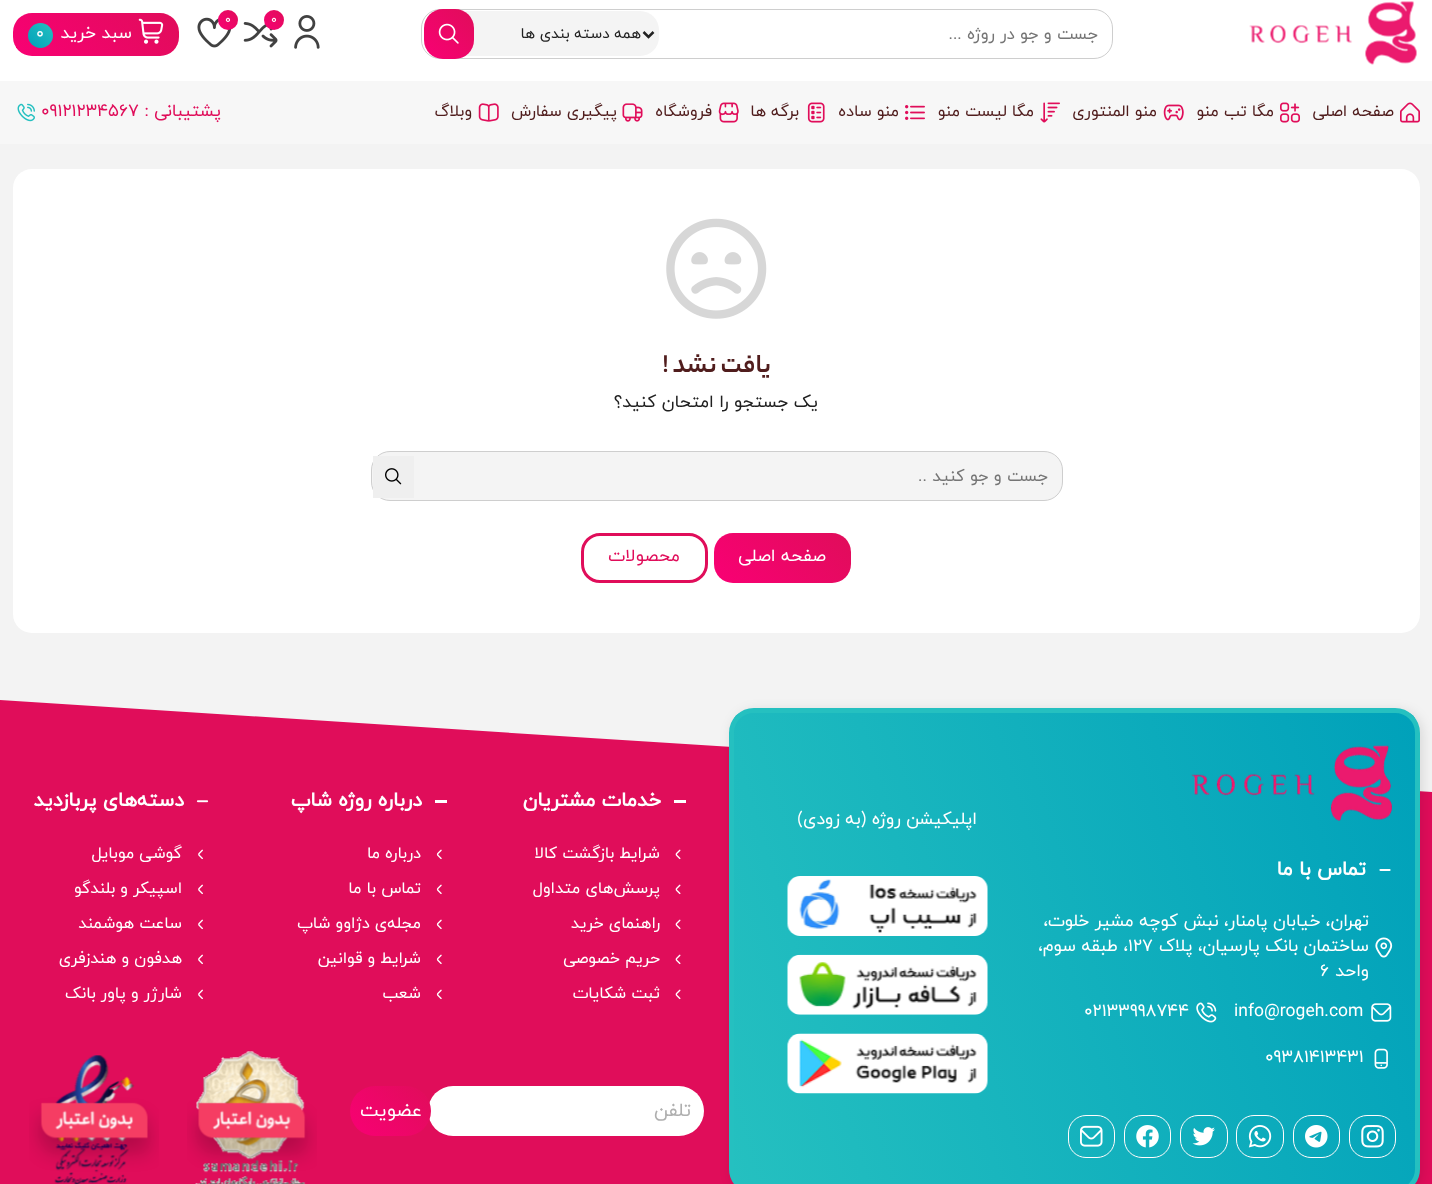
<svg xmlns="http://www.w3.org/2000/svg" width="1432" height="1184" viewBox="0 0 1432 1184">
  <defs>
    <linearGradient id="g1" gradientUnits="userSpaceOnUse" x1="474" y1="9" x2="424" y2="59"><stop offset="0" stop-color="#e00d5a"/><stop offset="1" stop-color="#f90074"/></linearGradient>
    <linearGradient id="g2" gradientUnits="userSpaceOnUse" x1="284" y1="10" x2="264" y2="30"><stop offset="0" stop-color="#e00d5a"/><stop offset="1" stop-color="#f90074"/></linearGradient>
    <linearGradient id="g3" gradientUnits="userSpaceOnUse" x1="238" y1="10" x2="218" y2="30"><stop offset="0" stop-color="#e00d5a"/><stop offset="1" stop-color="#f90074"/></linearGradient>
    <linearGradient id="g4" gradientUnits="userSpaceOnUse" x1="148" y1="-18" x2="43" y2="87"><stop offset="0" stop-color="#e00d5a"/><stop offset="1" stop-color="#f90074"/></linearGradient>
    <linearGradient id="g5" gradientUnits="userSpaceOnUse" x1="53" y1="23" x2="28" y2="48"><stop offset="0" stop-color="#25c0c0"/><stop offset="1" stop-color="#00a1ba"/></linearGradient>
    <linearGradient id="g6" gradientUnits="userSpaceOnUse" x1="829" y1="511" x2="736" y2="604"><stop offset="0" stop-color="#e00d5a"/><stop offset="1" stop-color="#f90074"/></linearGradient>
    <clipPath id="clip1"><rect x="729" y="708" width="691" height="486" rx="25"/></clipPath>
    <linearGradient id="g7" gradientUnits="userSpaceOnUse" x1="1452" y1="835" x2="696" y2="1066"><stop offset="0" stop-color="#00a1ba"/><stop offset="1" stop-color="#25c0c0"/></linearGradient>
    <linearGradient id="g8" gradientUnits="userSpaceOnUse" x1="423" y1="1078" x2="358" y2="1144"><stop offset="0" stop-color="#e00d5a"/><stop offset="1" stop-color="#f90074"/></linearGradient>
  </defs>
  <rect width="100%" height="100%" fill="#f3f3f3"/>
  <path d="M0 0h1432v81H0z" fill="#fff"/>
  <image x="1249" y="1" width="168" height="64" href="img/1.png"/>
  <rect x="421.5" y="9.5" width="691" height="49" rx="18.5" fill="none" stroke="#cecece"/>
  <path d="M446 11H640C650.5 11 659 19.5 659 30V37C659 47.5 650.5 56 640 56H446Z" fill="#f4f4f4"/>
  <path d="M643.5 32L648.5 37L653.5 32" fill="none" stroke="#222" stroke-width="2.5"/>
  <rect x="424" y="9" width="50" height="50" rx="19" fill="url(#g1)"/>
  <image x="438" y="23" width="21" height="21" href="img/2.png"/>
  <image x="294" y="15" width="26" height="34" href="img/3.png"/>
  <image x="243" y="22" width="35" height="26" href="img/4.png"/>
  <circle cx="274" cy="20" r="10" fill="url(#g2)"/>
  <image x="197" y="17" width="35" height="31" href="img/5.png"/>
  <circle cx="228" cy="20" r="10" fill="url(#g3)"/>
  <rect x="13" y="13" width="166" height="43" rx="19" fill="url(#g4)"/>
  <image x="138" y="18" width="26" height="26" href="img/6.png"/>
  <circle cx="40.5" cy="35.5" r="12.5" fill="url(#g5)"/>
  <path d="M0 81h1432v63H0z" fill="#f7f7f7"/>
  <image x="1400" y="102" width="20" height="21" href="img/7.png"/>
  <image x="1280" y="102" width="20" height="21" href="img/8.png"/>
  <image x="1163" y="104" width="21" height="17" href="img/9.png"/>
  <image x="1040" y="102" width="20" height="21" href="img/10.png"/>
  <image x="905" y="105" width="20" height="15" href="img/11.png"/>
  <image x="807" y="102" width="18" height="21" href="img/12.png"/>
  <image x="718" y="102" width="21" height="21" href="img/13.png"/>
  <image x="622" y="103" width="21" height="19" href="img/14.png"/>
  <image x="478" y="103" width="21" height="19" href="img/15.png"/>
  <image x="17" y="103" width="18" height="19" href="img/16.png"/>
  <rect x="13" y="169" width="1407" height="464" rx="19" fill="#fff"/>
  <image x="666" y="218" width="101" height="101" href="img/17.png"/>
  <rect x="371.5" y="451.5" width="691" height="49" rx="18.5" fill="#f4f4f4" stroke="#cecece"/>
  <path d="M373 456h41v42H373z" fill="#efefef"/>
  <image x="385" y="468" width="17" height="17" href="img/18.png"/>
  <rect x="714" y="533" width="137" height="50" rx="19" fill="url(#g6)"/>
  <rect x="582.5" y="534.5" width="124" height="47" rx="17.5" fill="none" stroke="#e00d5a" stroke-width="3"/>
  <path d="M0 700h1432v484H0z" fill="#e00d5a"/>
  <path d="M-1 700V694H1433V792Z" fill="#f3f3f3"/>
  <rect x="731" y="710" width="692" height="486" rx="25" fill="#0000001a" filter="blur(6px)"/>
  <g clip-path="url(#clip1)">
    <path d="M734 713h681v471H734z" fill="url(#g7)"/>
  </g>
  <rect x="731.5" y="710.5" width="686" height="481" rx="22.5" fill="none" stroke="#25c0c0" stroke-width="5"/>
  <image x="787" y="876" width="201" height="60" href="img/19.png"/>
  <image x="787" y="954" width="201" height="61" href="img/20.png"/>
  <image x="787" y="1033" width="201" height="61" href="img/21.png"/>
  <image x="1191" y="745" width="201" height="76" href="img/22.png"/>
  <image x="1379" y="869" width="12" height="2" href="img/23.png"/>
  <image x="1375" y="937" width="18" height="21" href="img/24.png"/>
  <image x="1371" y="1003" width="21" height="19" href="img/25.png"/>
  <image x="1196" y="1002" width="21" height="21" href="img/26.png"/>
  <image x="1374" y="1048" width="14" height="21" href="img/27.png"/>
  <rect x="1349.5" y="1115.5" width="46" height="42" rx="17.5" fill="none" stroke="#fffcfc"/>
  <image x="1361" y="1125" width="23" height="23" href="img/28.png"/>
  <rect x="1293.5" y="1115.5" width="46" height="42" rx="17.5" fill="none" stroke="#fffcfc"/>
  <image x="1305" y="1125" width="23" height="23" href="img/29.png"/>
  <rect x="1236.5" y="1115.5" width="47" height="42" rx="17.5" fill="none" stroke="#fffcfc"/>
  <image x="1248" y="1125" width="24" height="23" href="img/30.png"/>
  <rect x="1180.5" y="1115.5" width="47" height="42" rx="17.5" fill="none" stroke="#fffcfc"/>
  <image x="1192" y="1127" width="23" height="19" href="img/31.png"/>
  <rect x="1124.5" y="1115.5" width="46" height="42" rx="17.5" fill="none" stroke="#fffcfc"/>
  <image x="1136" y="1125" width="23" height="23" href="img/32.png"/>
  <rect x="1068.5" y="1115.5" width="46" height="42" rx="17.5" fill="none" stroke="#fffcfc"/>
  <image x="1080" y="1125" width="23" height="22" href="img/33.png"/>
  <path d="M674 800h12v3H674z" fill="#fff"/>
  <image x="675" y="849" width="6" height="11" href="img/34.png"/>
  <image x="675" y="884" width="6" height="11" href="img/34.png"/>
  <image x="675" y="919" width="6" height="11" href="img/34.png"/>
  <image x="675" y="954" width="6" height="11" href="img/34.png"/>
  <image x="675" y="989" width="6" height="11" href="img/34.png"/>
  <path d="M435 800h12v3H435z" fill="#fff"/>
  <image x="436" y="849" width="6" height="11" href="img/35.png"/>
  <image x="436" y="884" width="6" height="11" href="img/35.png"/>
  <image x="436" y="919" width="6" height="11" href="img/35.png"/>
  <image x="436" y="954" width="6" height="11" href="img/35.png"/>
  <image x="436" y="989" width="6" height="11" href="img/35.png"/>
  <image x="196" y="800" width="13" height="3" href="img/36.png"/>
  <image x="198" y="849" width="5" height="11" href="img/37.png"/>
  <image x="198" y="884" width="5" height="11" href="img/37.png"/>
  <image x="198" y="919" width="5" height="11" href="img/37.png"/>
  <image x="198" y="954" width="5" height="11" href="img/37.png"/>
  <image x="198" y="989" width="5" height="11" href="img/37.png"/>
  <rect x="428" y="1086" width="276" height="50" rx="25" fill="#fff"/>
  <rect x="350" y="1086" width="81" height="50" rx="25" fill="url(#g8)"/>
  <image x="187" y="1051" width="130" height="133" href="img/38.png"/>
  <image x="29" y="1055" width="130" height="129" href="img/39.png"/>
  <text x="1098" y="39" font-family="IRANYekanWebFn" font-size="16.75" direction="rtl" fill="#757575">جست و جو در روژه ...</text>
  <text x="641" y="38" font-family="IRANYekanWebFn" font-size="15" direction="rtl" fill="#202020">همه دسته بندی ها</text>
  <g font-family="IRANYekanWebFn" font-size="12" fill="#fff">
    <text x="271" y="23">0</text>
    <text x="225" y="23">0</text>
  </g>
  <text x="132" y="38" font-family="IRANYekanWebFn" font-size="17.5" direction="rtl" fill="#fff">سبد خرید</text>
  <text x="36" y="38" font-family="IRANYekanWebFn" font-size="16.25" fill="#fff">0</text>
  <g font-family="IRANYekanWebFn" font-size="16.25" direction="rtl" fill="#501d1d">
    <text x="1394" y="116">صفحه اصلی</text>
    <text x="1274" y="116">مگا تب منو</text>
    <text x="1157" y="116">منو المنتوری</text>
    <text x="1034" y="116">مگا لیست منو</text>
    <text x="899" y="116">منو ساده</text>
    <text x="799" y="116">برگه ها</text>
    <text x="712" y="116">فروشگاه</text>
    <text x="617" y="116">پیگیری سفارش</text>
    <text x="472" y="116">وبلاگ</text>
  </g>
  <text x="221" y="116" font-family="IRANYekanWebFn" font-size="17.5" direction="rtl" fill="#e00d5a">پشتیبانی :</text>
  <text x="41" y="116" font-family="IRANYekanWebFn" font-size="17.5" fill="#e00d5a">09121234567</text>
  <text x="771" y="372" font-family="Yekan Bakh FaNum" font-size="27.5" font-weight="bold" direction="rtl" fill="#501d1d">یافت نشد !</text>
  <text x="818" y="407" font-family="IRANYekanWebFn" font-size="17.5" direction="rtl" fill="#202020">یک جستجو را امتحان کنید؟</text>
  <text x="1048" y="481" font-family="IRANYekanWebFn" font-size="16.75" direction="rtl" fill="#757575">جست و جو کنید ..</text>
  <text x="826" y="561" font-family="IRANYekanWebFn" font-size="17.5" direction="rtl" fill="#fff">صفحه اصلی</text>
  <text x="680" y="561" font-family="IRANYekanWebFn" font-size="17.5" direction="rtl" fill="#e00d5a">محصولات</text>
  <text x="977" y="824" font-family="IRANYekanWebFn" font-size="17.5" direction="rtl" fill="#fff">اپلیکیشن روژه (به زودی)</text>
  <text x="1366" y="875" font-family="IRANYekanWebFn" font-size="20" font-weight="bold" direction="rtl" fill="#fff">تماس با ما</text>
  <g font-family="IRANYekanWebFn" font-size="17.5" direction="rtl" fill="#fff">
    <text x="1369" y="926">تهران، خیابان پامنار، نبش کوچه مشیر خلوت،</text>
    <text x="1369" y="951">ساختمان بانک پارسیان، پلاک</text>
  </g>
  <text x="1128" y="951" font-family="IRANYekanWebFn" font-size="17.5" fill="#fff">۱۲۷</text>
  <g font-family="IRANYekanWebFn" font-size="17.5" direction="rtl" fill="#fff">
    <text x="1128" y="951">، طبقه سوم،</text>
    <text x="1369" y="976">واحد</text>
  </g>
  <g font-family="IRANYekanWebFn" font-size="17.5" fill="#fff">
    <text x="1320" y="976">۶</text>
    <text x="1234" y="1016">info@rogeh.com</text>
    <text x="1084" y="1016">02133998744</text>
    <text x="1265" y="1062">09381413431</text>
  </g>
  <text x="661" y="806" font-family="IRANYekanWebFn" font-size="20" font-weight="bold" direction="rtl" fill="#fff">خدمات مشتریان</text>
  <g font-family="IRANYekanWebFn" font-size="16.25" direction="rtl" fill="#fff">
    <text x="660" y="858">شرایط بازگشت کالا</text>
    <text x="660" y="893">پرسش‌های متداول</text>
    <text x="660" y="928">راهنمای خرید</text>
    <text x="660" y="963">حریم خصوصی</text>
    <text x="660" y="998">ثبت شکایات</text>
  </g>
  <text x="422" y="806" font-family="IRANYekanWebFn" font-size="20" font-weight="bold" direction="rtl" fill="#fff">درباره‌ روژه شاپ</text>
  <g font-family="IRANYekanWebFn" font-size="16.25" direction="rtl" fill="#fff">
    <text x="421" y="858">درباره‌ ما</text>
    <text x="421" y="893">تماس با ما</text>
    <text x="421" y="928">مجله‌ی دژاوو شاپ</text>
    <text x="421" y="963">شرایط و قوانین</text>
    <text x="421" y="998">شعب</text>
  </g>
  <text x="184" y="806" font-family="IRANYekanWebFn" font-size="20" font-weight="bold" direction="rtl" fill="#fff">دسته‌های پربازدید</text>
  <g font-family="IRANYekanWebFn" font-size="16.25" direction="rtl" fill="#fff">
    <text x="182" y="858">گوشی موبایل</text>
    <text x="182" y="893">اسپیکر و بلندگو</text>
    <text x="182" y="928">ساعت هوشمند</text>
    <text x="182" y="963">هدفون و هندزفری</text>
    <text x="182" y="998">شارژر و پاور بانک</text>
  </g>
  <text x="691" y="1116" font-family="IRANYekanWebFn" font-size="19" direction="rtl" fill="#afafaf">تلفن</text>
  <text x="422" y="1116" font-family="IRANYekanWebFn" font-size="19" direction="rtl" fill="#fff">عضویت</text>
</svg>
